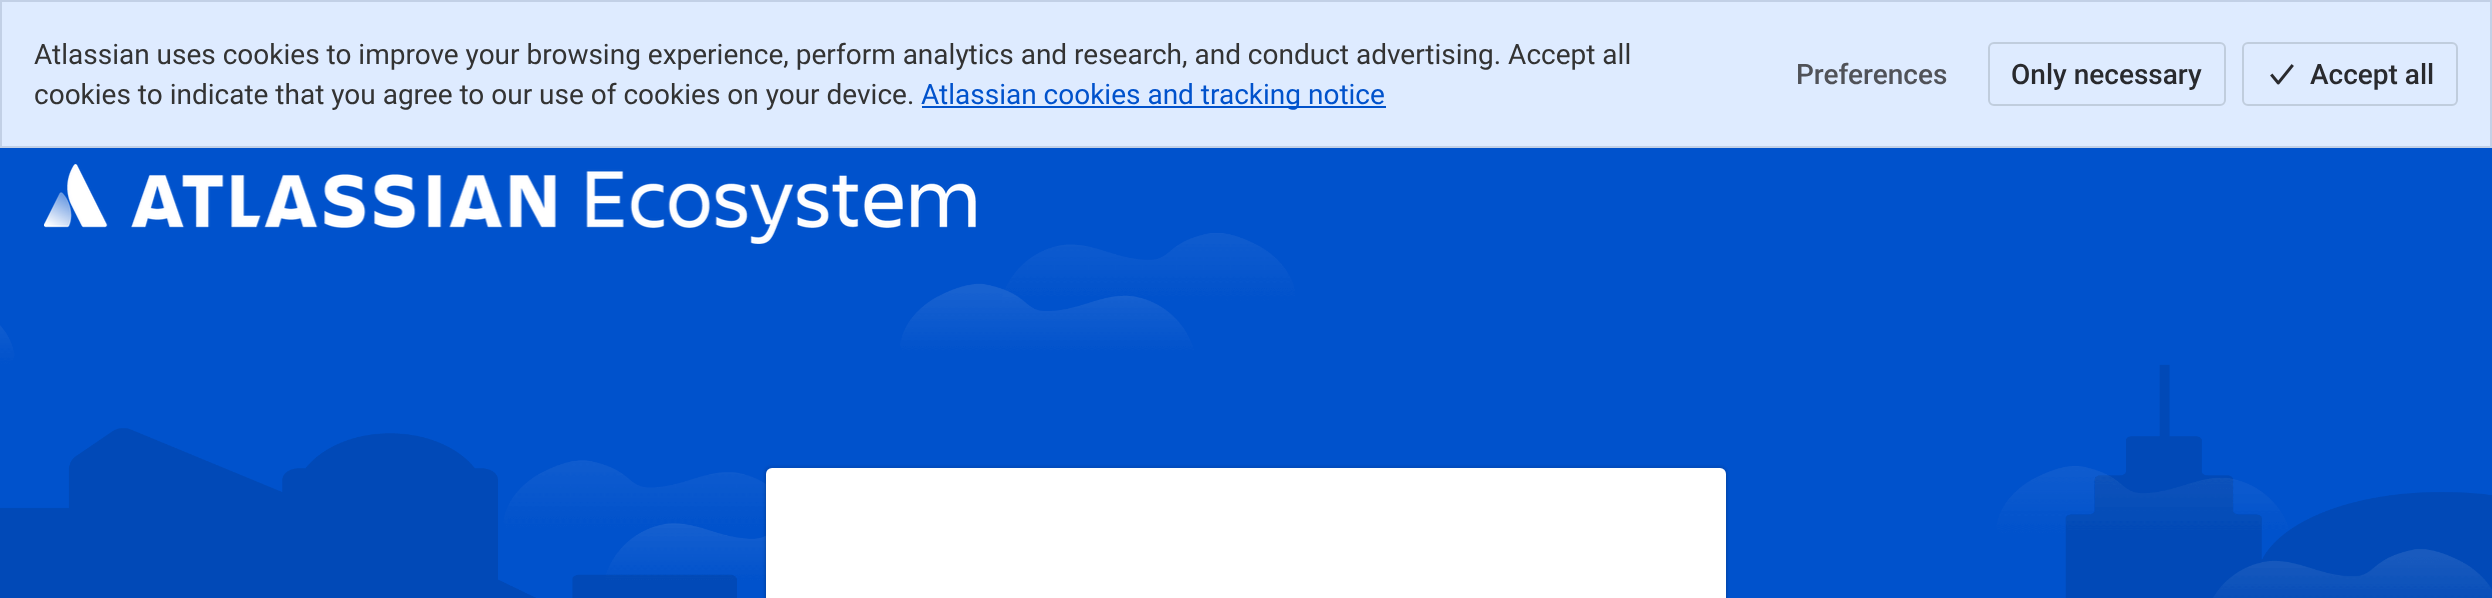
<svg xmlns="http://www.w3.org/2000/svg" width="2492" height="598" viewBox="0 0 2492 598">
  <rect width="100%" height="100%" fill="#deebff"/>
  <path d="M1 1h2490v146H1z" fill="none" stroke="#c2d0e6" stroke-width="2"/>
  <path d="M922 106h464v2H922z" fill="#0052cc"/>
  <rect x="1989" y="43" width="236" height="62" rx="5" fill="none" stroke="#c0cddd" stroke-width="2"/>
  <image x="2270" y="64" width="24" height="21" href="img/1.png"/>
  <rect x="2243" y="43" width="214" height="62" rx="5" fill="none" stroke="#c0cddd" stroke-width="2"/>
  <path d="M0 148h2492v450H0z" fill="#0052cc"/>
  <image x="0" y="233" width="2492" height="365" href="img/2.png"/>
  <image x="44" y="164" width="932" height="80" href="img/3.png"/>
  <rect x="764" y="466" width="964" height="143" rx="8" fill="#091e4221" filter="blur(1px)"/>
  <rect x="766" y="470" width="960" height="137" rx="6" fill="#091e4240" filter="blur(1px)"/>
  <rect x="766" y="468" width="960" height="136" rx="6" fill="#fff"/>
  <g font-family="Roboto" font-size="28" fill="#333">
    <text x="34" y="64">Atlassian uses cookies to improve your browsing experience, perform analytics and research, and conduct advertising. Accept all</text>
    <text x="34" y="104">cookies to indicate that you agree to our use of cookies on your device.</text>
  </g>
  <text x="921" y="104" font-family="Roboto" font-size="28" fill="#0052cc">Atlassian cookies and tracking notice</text>
  <text x="1796" y="84" font-family="Roboto" font-size="28" font-weight="500" fill="#505258">Preferences</text>
  <g font-family="Roboto" font-size="28" font-weight="500" fill="#292a2e">
    <text x="2011" y="84">Only necessary</text>
    <text x="2310" y="84">Accept all</text>
  </g>
</svg>
